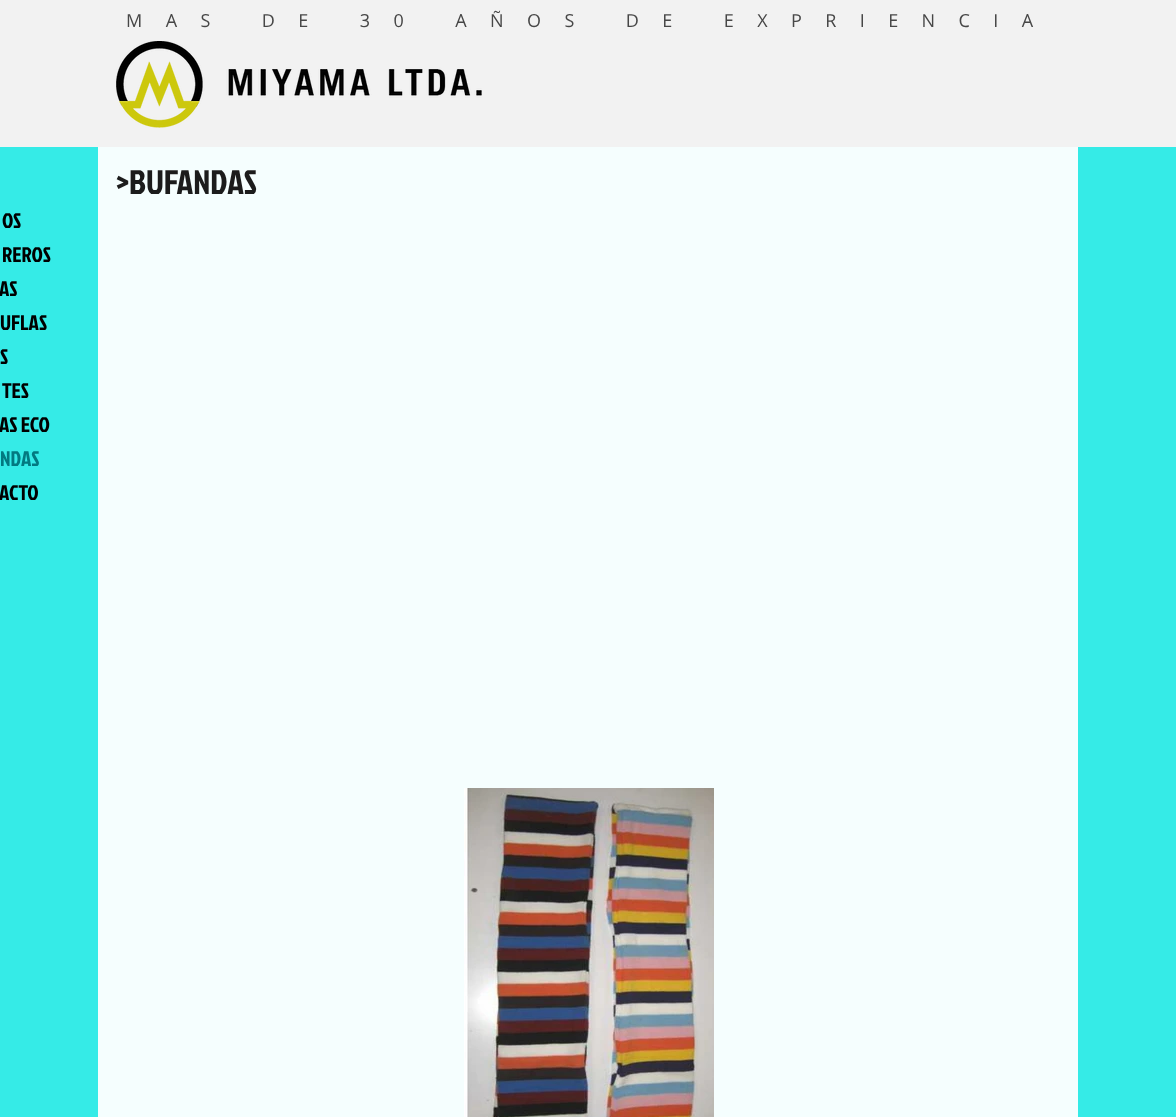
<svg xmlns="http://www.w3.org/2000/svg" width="1176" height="1117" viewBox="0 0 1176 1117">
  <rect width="100%" height="100%" fill="#35ebe7"/>
  <path d="M0 0h1176v147H0z" fill="#f2f2f2"/>
  <image x="116" y="41" width="366" height="87" href="img/1.png"/>
  <path d="M98 147h980v970H98z" fill="#f5fefe"/>
  <image x="464" y="788" width="250" height="329" href="img/2.png"/>
  <text x="126" y="27" font-family="Open Sans" font-size="18" letter-spacing="23.4" fill="#474747">MAS DE 30 AÑOS DE EXPRIENCIA</text>
  <text x="116" y="194" font-family="Jockey One" font-size="34" fill="#1c1c1c">&gt;BUFANDAS</text>
  <g font-family="Jockey One" font-size="21" fill="#000">
    <text x="2" y="228">OS</text>
    <text x="2" y="262">REROS</text>
    <text x="-1" y="296">AS</text>
    <text x="0" y="330">UFLAS</text>
    <text x="0" y="364">S</text>
    <text x="2" y="398">TES</text>
    <text x="-1" y="432">AS ECO</text>
  </g>
  <text x="0" y="466" font-family="Jockey One" font-size="21" fill="#037980">NDAS</text>
  <text x="-1" y="500" font-family="Jockey One" font-size="21" fill="#000">ACTO</text>
</svg>
